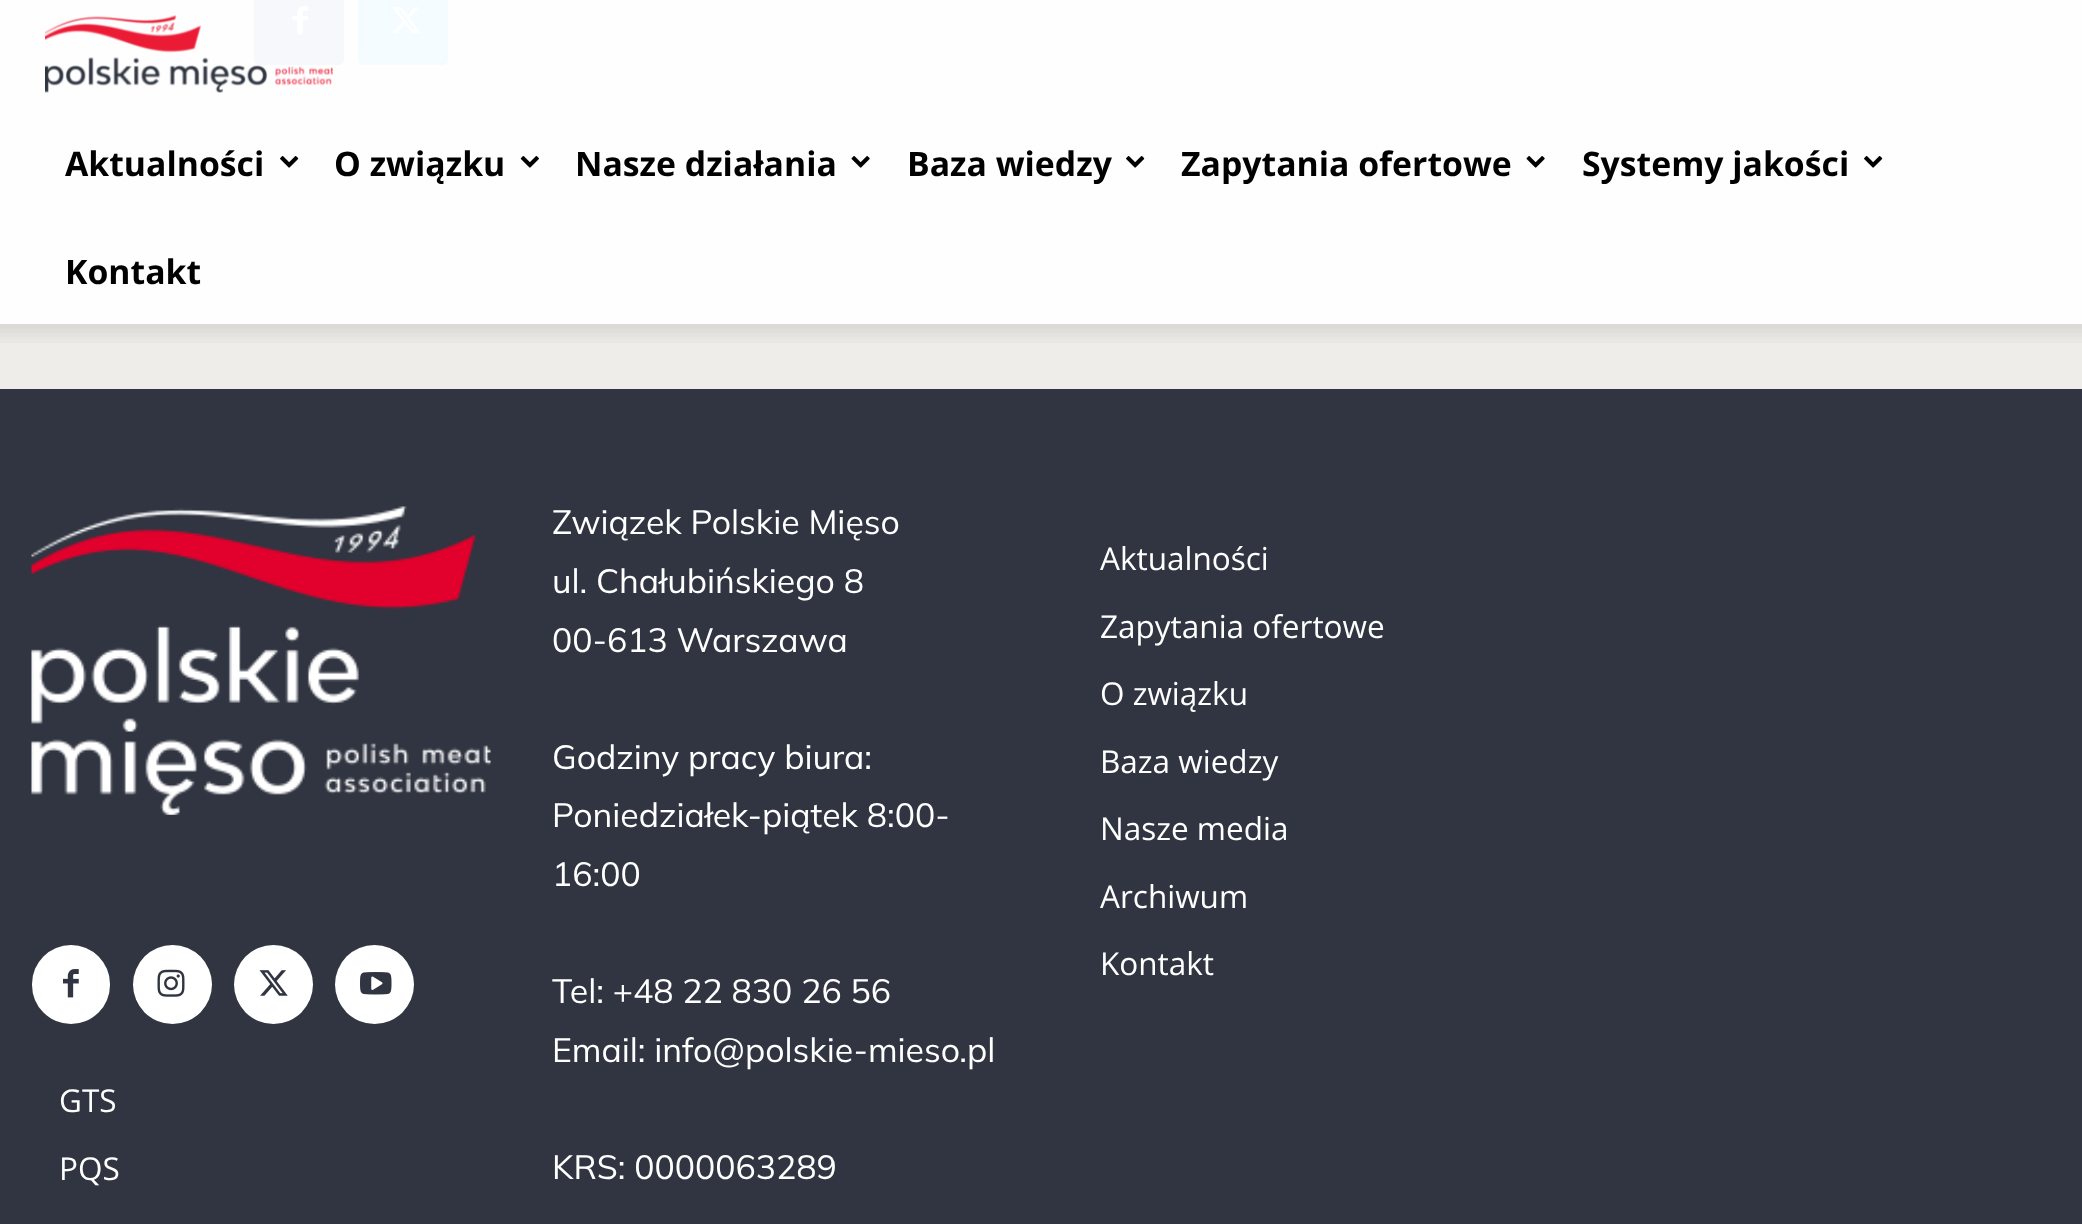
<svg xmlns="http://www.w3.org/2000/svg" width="2082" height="1224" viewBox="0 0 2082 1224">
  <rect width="100%" height="100%" fill="#eeedea"/>
  <path d="M0 0h2082v324H0z" fill="#fefefe"/>
  <rect x="254" y="-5" width="90" height="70" rx="5" fill="#f6f8fb"/>
  <image x="292" y="6" width="17" height="29" href="img/1.png"/>
  <rect x="358" y="-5" width="90" height="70" rx="5" fill="#f4fcff"/>
  <image x="392" y="7" width="29" height="26" href="img/2.png"/>
  <image x="45" y="15" width="288" height="78" href="img/3.png"/>
  <image x="280" y="156" width="19" height="12" href="img/4.png"/>
  <image x="520" y="156" width="19" height="12" href="img/5.png"/>
  <image x="851" y="156" width="19" height="12" href="img/6.png"/>
  <image x="1126" y="156" width="19" height="12" href="img/4.png"/>
  <image x="1526" y="156" width="19" height="12" href="img/6.png"/>
  <image x="1864" y="156" width="19" height="12" href="img/7.png"/>
  <image x="0" y="324" width="2082" height="19" href="img/8.png"/>
  <path d="M0 389h2082v835H0z" fill="#303541"/>
  <image x="31" y="506" width="460" height="309" href="img/9.png"/>
  <rect x="32" y="945" width="78" height="79" rx="39" fill="#fff"/>
  <image x="63" y="969" width="16" height="29" href="img/10.png"/>
  <circle cx="172.5" cy="984.5" r="39.5" fill="#fff"/>
  <image x="157" y="969" width="28" height="28" href="img/11.png"/>
  <circle cx="273.5" cy="984.5" r="39.5" fill="#fff"/>
  <image x="259" y="970" width="29" height="26" href="img/12.png"/>
  <circle cx="374.5" cy="984.5" r="39.5" fill="#fff"/>
  <image x="360" y="972" width="32" height="23" href="img/13.png"/>
  <g font-family="Open Sans" font-size="33.75" font-weight="bold" fill="#000">
    <text x="65" y="176">Aktualności</text>
    <text x="334" y="176">O związku</text>
    <text x="575" y="176">Nasze działania</text>
    <text x="907" y="176">Baza wiedzy</text>
    <text x="1181" y="176">Zapytania ofertowe</text>
    <text x="1582" y="176">Systemy jakości</text>
    <text x="65" y="284">Kontakt</text>
  </g>
  <g font-family="Mulish" font-size="33.75" fill="#fff">
    <text x="552" y="534">Związek Polskie Mięso</text>
    <text x="552" y="593">ul. Chałubińskiego 8</text>
    <text x="552" y="652">00-613 Warszawa</text>
    <text x="552" y="769">Godziny pracy biura:</text>
    <text x="552" y="827">Poniedziałek-piątek 8:00-</text>
    <text x="552" y="886">16:00</text>
    <text x="552" y="1003">Tel: +48 22 830 26 56</text>
    <text x="552" y="1062">Email: info@polskie-mieso.pl</text>
    <text x="552" y="1179">KRS: 0000063289</text>
  </g>
  <g font-family="Open Sans" font-size="31.5" fill="#fff">
    <text x="1100" y="570">Aktualności</text>
    <text x="1100" y="638">Zapytania ofertowe</text>
    <text x="1100" y="705">O związku</text>
    <text x="1100" y="773">Baza wiedzy</text>
    <text x="1100" y="840">Nasze media</text>
    <text x="1100" y="908">Archiwum</text>
    <text x="1100" y="975">Kontakt</text>
    <text x="59" y="1112">GTS</text>
    <text x="59" y="1180">PQS</text>
  </g>
</svg>
